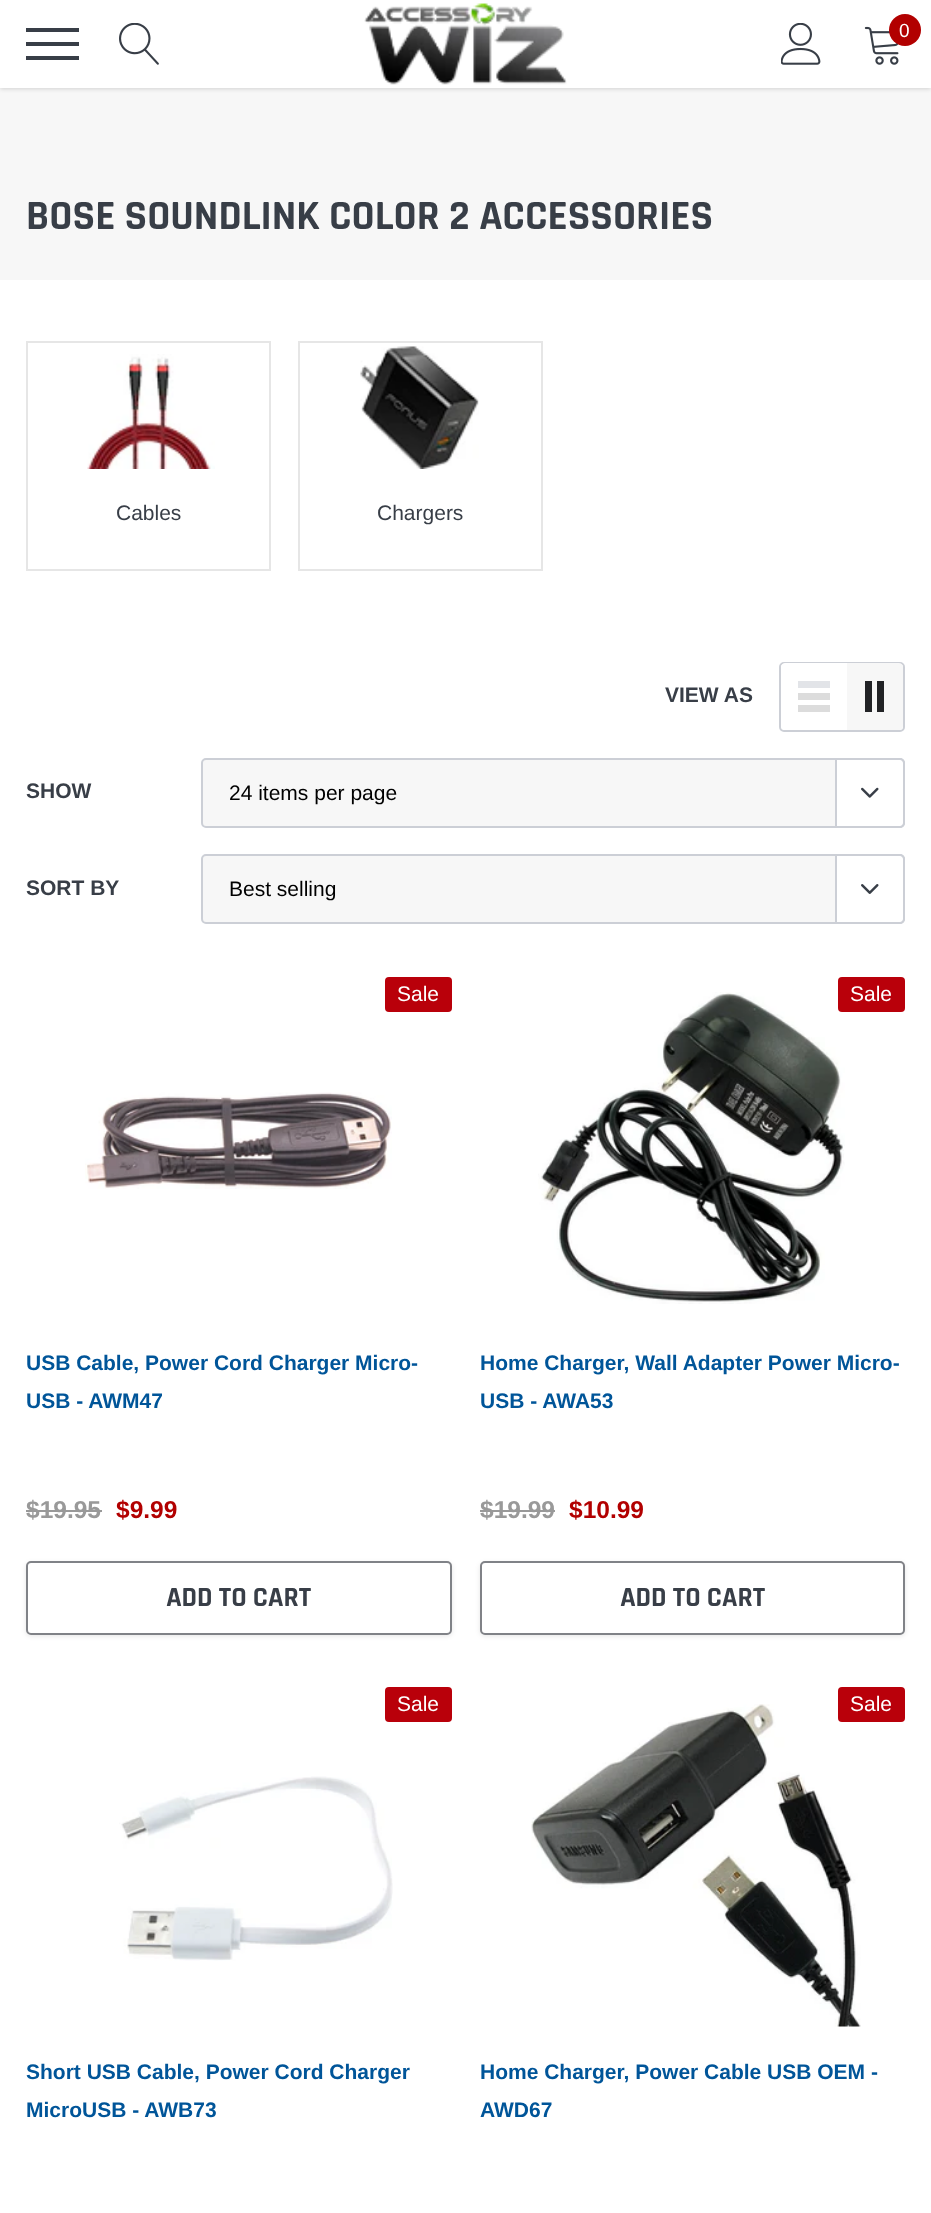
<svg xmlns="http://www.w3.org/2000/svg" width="931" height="2213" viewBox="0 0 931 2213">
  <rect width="100%" height="100%" fill="#fff"/>
  <path d="M0 88h931v192H0z" fill="#f7f7f7"/>
  <path d="M0 2h931v87H0z" fill="#00000026" filter="blur(2px)"/>
  <path d="M0 0h931v88H0z" fill="#fff"/>
  <path d="M26 42h53v4H26z" fill="#383e47"/>
  <path d="M26 28h53v4H26z" fill="#383e47"/>
  <path d="M26 56h53v4H26z" fill="#383e47"/>
  <image x="119" y="23" width="40" height="42" href="img/1.png"/>
  <image x="364" y="3" width="203" height="82" href="img/2.png"/>
  <image x="781" y="23" width="40" height="42" href="img/3.png"/>
  <image x="864" y="26" width="35" height="39" href="img/4.png"/>
  <circle cx="905" cy="30" r="16" fill="#b20000"/>
  <path d="M27 342h243v228H27z" fill="none" stroke="#e6e6e6" stroke-width="2"/>
  <image x="87" y="354" width="128" height="115" href="img/5.png"/>
  <path d="M299 342h243v228H299z" fill="none" stroke="#e6e6e6" stroke-width="2"/>
  <image x="360" y="346" width="119" height="123" href="img/6.png"/>
  <rect x="780" y="663" width="124" height="68" rx="4" fill="none" stroke="#cccfd6" stroke-width="2"/>
  <path d="M785 663H847V730H785C783 730 781 728 781 726V667C781 665 783 663 785 663Z" fill="#fff"/>
  <path d="M798 705h32v7H798z" fill="#dcdcdc"/>
  <path d="M798 693h32v7H798z" fill="#dcdcdc"/>
  <path d="M798 681h32v7H798z" fill="#e2e4e8"/>
  <path d="M847 663H899C901 663 903 665 903 667V726C903 728 901 730 899 730H847Z" fill="#f7f7f7"/>
  <path d="M877 681h7v31H877z" fill="#222326"/>
  <path d="M865 681h7v31H865z" fill="#222326"/>
  <rect x="202" y="759" width="702" height="68" rx="4" fill="#f7f7f7" stroke="#cccfd6" stroke-width="2"/>
  <path d="M836 759H900C902 759 904 761 904 763V823C904 825 902 827 900 827H836Z" fill="#fff" stroke="#cccfd6" stroke-width="2"/>
  <image x="861" y="787" width="18" height="11" href="img/7.png"/>
  <rect x="202" y="855" width="702" height="68" rx="4" fill="#f7f7f7" stroke="#cccfd6" stroke-width="2"/>
  <path d="M836 855H900C902 855 904 857 904 859V919C904 921 902 923 900 923H836Z" fill="#fff" stroke="#cccfd6" stroke-width="2"/>
  <image x="861" y="884" width="18" height="10" href="img/8.png"/>
  <rect x="385" y="977" width="67" height="35" rx="4" fill="#b9000a"/>
  <image x="85" y="1092" width="307" height="97" href="img/9.png"/>
  <path d="M26 1510h76v2H26z" fill="#999"/>
  <rect x="26" y="1563" width="426" height="73" rx="5" fill="#0000001a" filter="blur(2.5px)"/>
  <rect x="27" y="1562" width="424" height="72" rx="4" fill="#fff" stroke="#808287" stroke-width="2"/>
  <image x="538" y="992" width="307" height="312" href="img/10.png"/>
  <rect x="838" y="977" width="67" height="35" rx="4" fill="#b9000a"/>
  <path d="M480 1510h75v2H480z" fill="#999"/>
  <rect x="480" y="1563" width="425" height="73" rx="5" fill="#0000001a" filter="blur(2.5px)"/>
  <rect x="481" y="1562" width="423" height="72" rx="4" fill="#fff" stroke="#808287" stroke-width="2"/>
  <rect x="385" y="1687" width="67" height="35" rx="4" fill="#b9000a"/>
  <image x="119" y="1776" width="274" height="185" href="img/11.png"/>
  <image x="531" y="1704" width="330" height="323" href="img/12.png"/>
  <rect x="838" y="1687" width="67" height="35" rx="4" fill="#b9000a"/>
  <text x="899" y="37" font-family="Arimo" font-size="19" fill="#fff">0</text>
  <text x="26" y="229" font-family="Rajdhani" font-size="42" font-weight="bold" fill="#383e47">BOSE SOUNDLINK COLOR 2 ACCESSORIES</text>
  <g font-family="Arimo" font-size="21" fill="#383e47">
    <text x="116" y="520">Cables</text>
    <text x="377" y="520">Chargers</text>
  </g>
  <g font-family="Arimo" font-size="21" font-weight="bold" fill="#383e47">
    <text x="665" y="702">VIEW AS</text>
    <text x="26" y="798">SHOW</text>
  </g>
  <text x="229" y="800" font-family="Arimo" font-size="21" fill="#000">24 items per page</text>
  <text x="26" y="895" font-family="Arimo" font-size="21" font-weight="bold" fill="#383e47">SORT BY</text>
  <text x="229" y="896" font-family="Arimo" font-size="21" fill="#000">Best selling</text>
  <text x="397" y="1001" font-family="Arimo" font-size="21" fill="#fff">Sale</text>
  <g font-family="Arimo" font-size="21" font-weight="bold" fill="#059">
    <text x="26" y="1370">USB Cable, Power Cord Charger Micro-</text>
    <text x="26" y="1408">USB - AWM47</text>
  </g>
  <text x="26" y="1518" font-family="Arimo" font-size="24.5" font-weight="bold" fill="#999">$19.95</text>
  <text x="116" y="1518" font-family="Arimo" font-size="24.5" font-weight="bold" fill="#b20000">$9.99</text>
  <text x="166" y="1606" font-family="Rajdhani" font-size="28" font-weight="bold" fill="#383e47">ADD TO CART</text>
  <text x="850" y="1001" font-family="Arimo" font-size="21" fill="#fff">Sale</text>
  <g font-family="Arimo" font-size="21" font-weight="bold" fill="#059">
    <text x="480" y="1370">Home Charger, Wall Adapter Power Micro-</text>
    <text x="480" y="1408">USB - AWA53</text>
  </g>
  <text x="480" y="1518" font-family="Arimo" font-size="24.5" font-weight="bold" fill="#999">$19.99</text>
  <text x="569" y="1518" font-family="Arimo" font-size="24.5" font-weight="bold" fill="#b20000">$10.99</text>
  <text x="620" y="1606" font-family="Rajdhani" font-size="28" font-weight="bold" fill="#383e47">ADD TO CART</text>
  <text x="397" y="1711" font-family="Arimo" font-size="21" fill="#fff">Sale</text>
  <g font-family="Arimo" font-size="21" font-weight="bold" fill="#059">
    <text x="26" y="2079">Short USB Cable, Power Cord Charger</text>
    <text x="26" y="2117">MicroUSB - AWB73</text>
  </g>
  <text x="850" y="1711" font-family="Arimo" font-size="21" fill="#fff">Sale</text>
  <g font-family="Arimo" font-size="21" font-weight="bold" fill="#059">
    <text x="480" y="2079">Home Charger, Power Cable USB OEM -</text>
    <text x="480" y="2117">AWD67</text>
  </g>
</svg>
